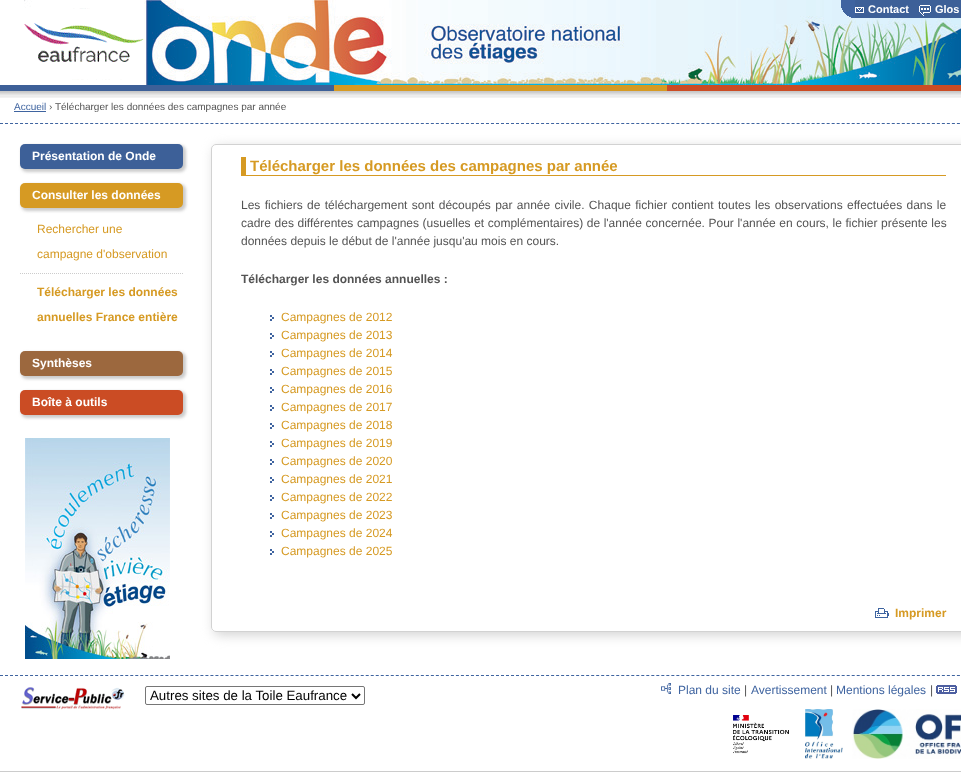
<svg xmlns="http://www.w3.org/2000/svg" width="961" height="772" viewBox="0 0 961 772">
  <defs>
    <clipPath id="clip1"><path d="M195 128H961V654H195ZM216 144H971C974 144 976 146 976 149V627C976 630 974 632 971 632H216C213 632 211 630 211 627V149C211 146 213 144 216 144Z" clip-rule="evenodd"/></clipPath>
  </defs>
  <rect width="100%" height="100%" fill="#ccc"/>
  <path d="M0 0h961v771H0z" fill="#fff"/>
  <image x="0" y="91" width="961" height="7" href="img/1.png"/>
  <image x="24" y="0" width="937" height="85" href="img/2.png"/>
  <image x="841" y="0" width="14" height="18" href="img/3.png"/>
  <path d="M855 0h106v18H855z" fill="#3d6098"/>
  <image x="855" y="7" width="9" height="6" href="img/4.png"/>
  <image x="919" y="5" width="12" height="11" href="img/5.png"/>
  <path d="M0 85h334v6H0z" fill="#3d6098"/>
  <path d="M334 85h333v6H334z" fill="#d69a23"/>
  <path d="M667 85h294v6H667z" fill="#cb4c24"/>
  <path d="M14 111h32v1H14z" fill="#3f64a0"/>
  <path d="M0 123.5H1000" fill="none" stroke="#3f64a0" stroke-dasharray="3 2.01"/>
  <image x="25" y="438" width="145" height="221" href="img/6.png"/>
  <rect x="21" y="145" width="165" height="27" rx="6" fill="#ccc" filter="blur(1.5px)"/>
  <rect x="20" y="144" width="163" height="25" rx="5" fill="#3d6098"/>
  <rect x="21" y="184" width="165" height="27" rx="6" fill="#ccc" filter="blur(1.5px)"/>
  <rect x="20" y="183" width="163" height="25" rx="5" fill="#d69a23"/>
  <path d="M20 273.5H183" fill="none" stroke="#ccc" stroke-dasharray="1 1"/>
  <rect x="21" y="352" width="165" height="27" rx="6" fill="#ccc" filter="blur(1.5px)"/>
  <rect x="20" y="351" width="163" height="25" rx="5" fill="#9c683e"/>
  <rect x="21" y="391" width="165" height="27" rx="6" fill="#ccc" filter="blur(1.5px)"/>
  <rect x="20" y="390" width="163" height="25" rx="5" fill="#cb4c24"/>
  <g clip-path="url(#clip1)">
    <rect x="214" y="147" width="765" height="488" rx="5" fill="#d2d2d2" filter="blur(6px)"/>
  </g>
  <rect x="211.5" y="144.5" width="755" height="487" rx="4.5" fill="none" stroke="#d2d2d2"/>
  <path d="M241 175h705v1H241z" fill="#d69a23"/>
  <path d="M241 157h5v19H241z" fill="#d69a23"/>
  <image x="270" y="315" width="4" height="6" href="img/7.png"/>
  <image x="270" y="333" width="4" height="6" href="img/7.png"/>
  <image x="270" y="351" width="4" height="6" href="img/7.png"/>
  <image x="270" y="369" width="4" height="6" href="img/7.png"/>
  <image x="270" y="387" width="4" height="6" href="img/7.png"/>
  <image x="270" y="405" width="4" height="6" href="img/7.png"/>
  <image x="270" y="423" width="4" height="6" href="img/7.png"/>
  <image x="270" y="441" width="4" height="6" href="img/7.png"/>
  <image x="270" y="459" width="4" height="6" href="img/7.png"/>
  <image x="270" y="477" width="4" height="6" href="img/7.png"/>
  <image x="270" y="495" width="4" height="6" href="img/7.png"/>
  <image x="270" y="513" width="4" height="6" href="img/7.png"/>
  <image x="270" y="531" width="4" height="6" href="img/7.png"/>
  <image x="270" y="549" width="4" height="6" href="img/7.png"/>
  <image x="875" y="608" width="14" height="10" href="img/8.png"/>
  <path d="M0 675.5H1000" fill="none" stroke="#3f64a0" stroke-dasharray="3 2.01"/>
  <image x="21" y="687" width="104" height="23" href="img/9.png"/>
  <rect x="145.5" y="686.5" width="219" height="18" rx="1.5" fill="none" stroke="#767676"/>
  <path d="M352 694L356 698L360 694" fill="none" stroke="#000" stroke-width="2"/>
  <image x="661" y="683" width="10" height="11" href="img/10.png"/>
  <image x="936" y="685" width="21" height="9" href="img/11.png"/>
  <image x="733" y="715" width="56" height="39" href="img/12.png"/>
  <image x="805" y="709" width="38" height="50" href="img/13.png"/>
  <image x="852" y="709" width="109" height="50" href="img/14.png"/>
  <g font-family="Liberation Sans" font-size="11" font-weight="bold" fill="#fff">
    <text x="868" y="13">Contact</text>
    <text x="935" y="13">Glos</text>
  </g>
  <text x="14" y="110" font-family="Liberation Sans" font-size="10" fill="#3f64a0">Accueil</text>
  <text x="49" y="110" font-family="Liberation Sans" font-size="10" fill="#545454">› Télécharger les données des campagnes par année</text>
  <g font-family="Liberation Sans" font-size="12" font-weight="bold" fill="#fff">
    <text x="32" y="160">Présentation de Onde</text>
    <text x="32" y="199">Consulter les données</text>
  </g>
  <g font-family="Liberation Sans" font-size="12" fill="#d69a23">
    <text x="37" y="233">Rechercher une</text>
    <text x="37" y="258">campagne d'observation</text>
  </g>
  <g font-family="Liberation Sans" font-size="12" font-weight="bold" fill="#d69a23">
    <text x="37" y="296">Télécharger les données</text>
    <text x="37" y="321">annuelles France entière</text>
  </g>
  <g font-family="Liberation Sans" font-size="12" font-weight="bold" fill="#fff">
    <text x="32" y="367">Synthèses</text>
    <text x="32" y="406">Boîte à outils</text>
  </g>
  <text x="250" y="171" font-family="Liberation Sans" font-size="15" font-weight="bold" fill="#d69a23">Télécharger les données des campagnes par année</text>
  <g font-family="Liberation Sans" font-size="12" fill="#545454">
    <text x="241" y="209" word-spacing="1">Les fichiers de téléchargement sont découpés par année civile. Chaque fichier contient toutes les observations effectuées dans le</text>
    <text x="241" y="227" word-spacing="0.25">cadre des différentes campagnes (usuelles et complémentaires) de l'année concernée. Pour l'année en cours, le fichier présente les</text>
    <text x="241" y="245">données depuis le début de l'année jusqu'au mois en cours.</text>
  </g>
  <text x="241" y="283" font-family="Liberation Sans" font-size="12" font-weight="bold" fill="#545454">Télécharger les données annuelles :</text>
  <g font-family="Liberation Sans" font-size="12" fill="#d69a23">
    <text x="281" y="321">Campagnes de 2012</text>
    <text x="281" y="339">Campagnes de 2013</text>
    <text x="281" y="357">Campagnes de 2014</text>
    <text x="281" y="375">Campagnes de 2015</text>
    <text x="281" y="393">Campagnes de 2016</text>
    <text x="281" y="411">Campagnes de 2017</text>
    <text x="281" y="429">Campagnes de 2018</text>
    <text x="281" y="447">Campagnes de 2019</text>
    <text x="281" y="465">Campagnes de 2020</text>
    <text x="281" y="483">Campagnes de 2021</text>
    <text x="281" y="501">Campagnes de 2022</text>
    <text x="281" y="519">Campagnes de 2023</text>
    <text x="281" y="537">Campagnes de 2024</text>
    <text x="281" y="555">Campagnes de 2025</text>
  </g>
  <text x="895" y="617" font-family="Liberation Sans" font-size="12" font-weight="bold" fill="#d69a23">Imprimer</text>
  <text x="150" y="700" font-family="Liberation Sans" font-size="13.3" fill="#000">Autres sites de la Toile Eaufrance</text>
  <text x="678" y="694" font-family="Liberation Sans" font-size="12" fill="#3f64a0">Plan du site</text>
  <text x="744" y="694" font-family="Liberation Sans" font-size="12" fill="#545454">|</text>
  <text x="751" y="694" font-family="Liberation Sans" font-size="12" fill="#3f64a0">Avertissement</text>
  <text x="830" y="694" font-family="Liberation Sans" font-size="12" fill="#545454">|</text>
  <text x="836" y="694" font-family="Liberation Sans" font-size="12" fill="#3f64a0">Mentions légales</text>
  <text x="930" y="694" font-family="Liberation Sans" font-size="12" fill="#545454">|</text>
</svg>
